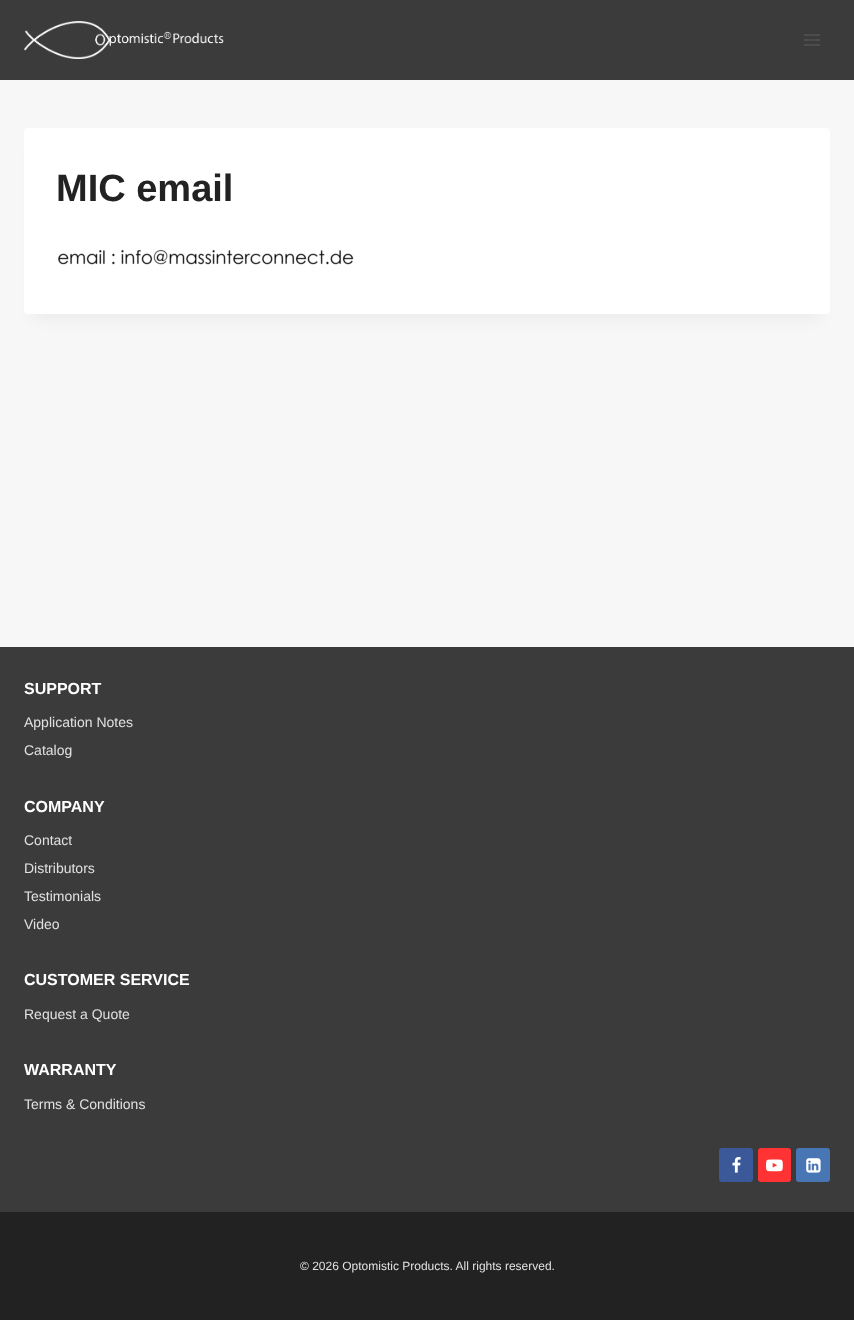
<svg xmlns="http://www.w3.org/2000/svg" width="854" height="1320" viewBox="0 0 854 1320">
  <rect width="100%" height="100%" fill="#f7f7f7"/>
  <path d="M0 0h854v80H0z" fill="#3b3b3b"/>
  <image x="24" y="21" width="200" height="38" href="img/1.png"/>
  <image x="804" y="34" width="16" height="12" href="img/2.png"/>
  <path d="M34 153h786v166H34z" fill="#0000000d" filter="blur(7.5px)"/>
  <rect x="24" y="128" width="806" height="186" rx="4" fill="#fff"/>
  <image x="58" y="249" width="296" height="16" href="img/3.png"/>
  <path d="M0 1212h854v108H0z" fill="#222"/>
  <path d="M0 647h854v565H0z" fill="#3b3b3b"/>
  <rect x="719" y="1148" width="34" height="34" rx="3" fill="#3b5998"/>
  <image x="732" y="1157" width="9" height="16" href="img/4.png"/>
  <rect x="758" y="1148" width="33" height="34" rx="3" fill="#f33"/>
  <image x="766" y="1159" width="17" height="13" href="img/5.png"/>
  <rect x="796" y="1148" width="34" height="34" rx="3" fill="#4875b4"/>
  <image x="806" y="1158" width="15" height="15" href="img/6.png"/>
  <text x="56" y="201" font-family="Liberation Sans" font-size="38" font-weight="bold" fill="#222">MIC email</text>
  <text x="24" y="694" font-family="Liberation Sans" font-size="16" font-weight="bold" fill="#fff">SUPPORT</text>
  <g font-family="Liberation Sans" font-size="14" fill="#e1e1e1">
    <text x="24" y="727">Application Notes</text>
    <text x="24" y="755">Catalog</text>
  </g>
  <text x="24" y="812" font-family="Liberation Sans" font-size="16" font-weight="bold" fill="#fff">COMPANY</text>
  <g font-family="Liberation Sans" font-size="14" fill="#e1e1e1">
    <text x="24" y="845">Contact</text>
    <text x="24" y="873">Distributors</text>
    <text x="24" y="901">Testimonials</text>
    <text x="24" y="929">Video</text>
  </g>
  <text x="24" y="985" font-family="Liberation Sans" font-size="16" font-weight="bold" fill="#fff">CUSTOMER SERVICE</text>
  <text x="24" y="1019" font-family="Liberation Sans" font-size="14" fill="#e1e1e1">Request a Quote</text>
  <text x="24" y="1075" font-family="Liberation Sans" font-size="16" font-weight="bold" fill="#fff">WARRANTY</text>
  <text x="24" y="1109" font-family="Liberation Sans" font-size="14" fill="#e1e1e1">Terms &amp; Conditions</text>
  <text x="300" y="1270" font-family="Liberation Sans" font-size="12" fill="#e1e1e1">© 2026 Optomistic Products. All rights reserved.</text>
</svg>
